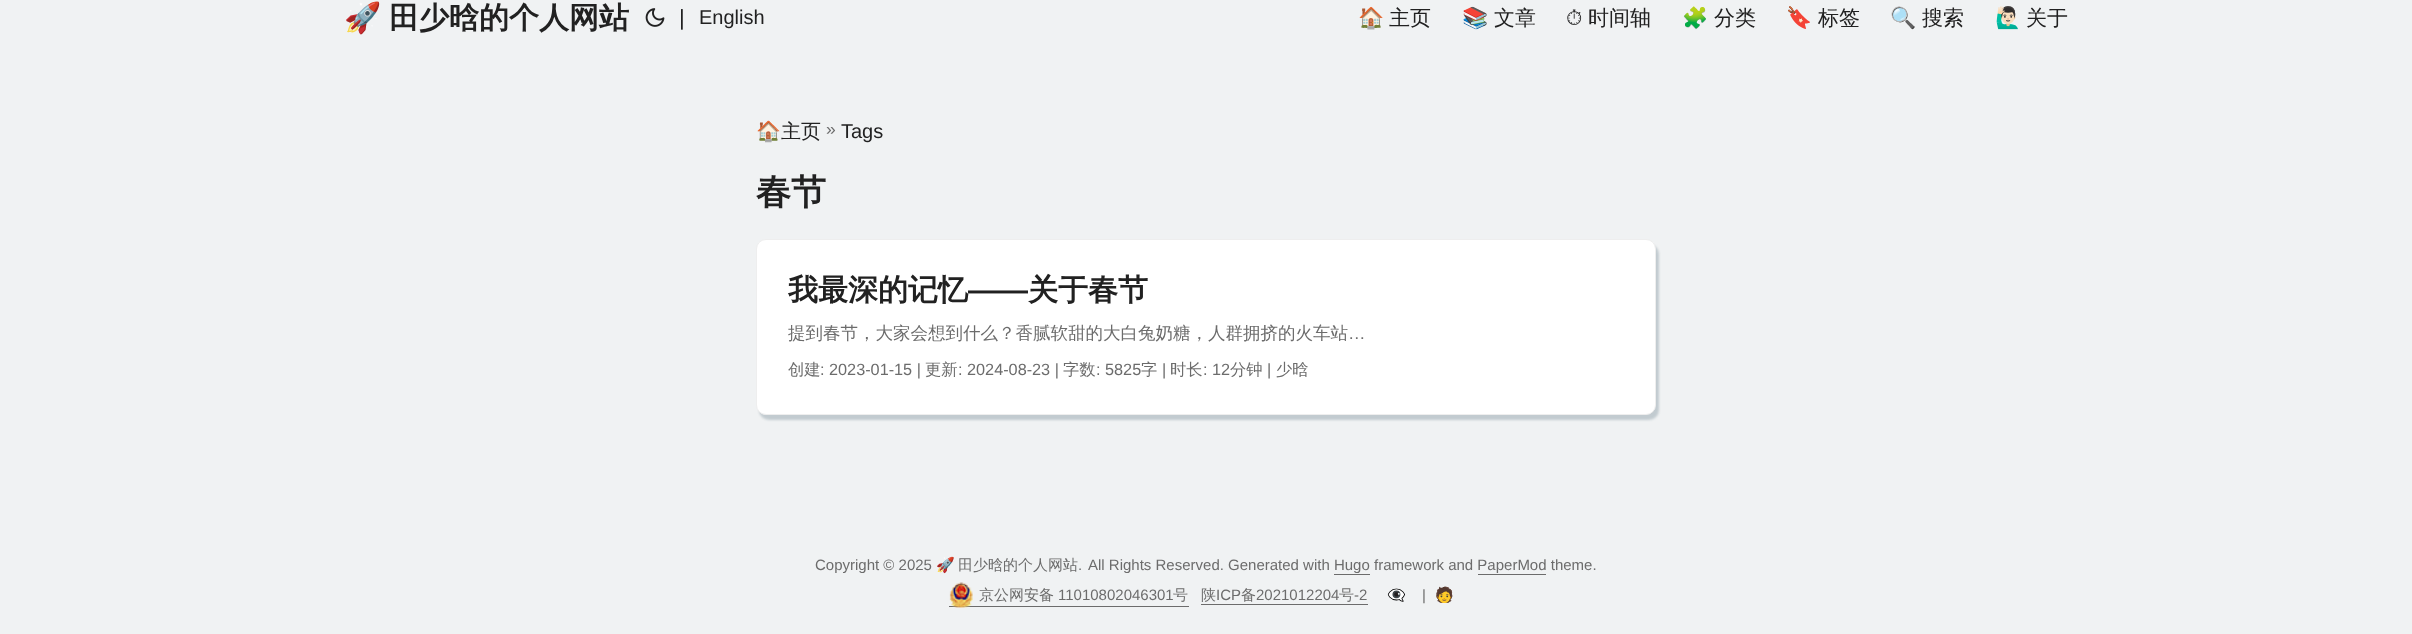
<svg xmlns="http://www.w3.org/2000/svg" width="2412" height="634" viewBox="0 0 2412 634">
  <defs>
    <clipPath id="clip1"><path d="M1358 0h711v55H1358z"/></clipPath>
  </defs>
  <rect width="100%" height="100%" fill="#f0f2f3"/>
  <image x="645" y="8" width="20" height="19" href="img/1.png"/>
  <rect x="759" y="244" width="900" height="176" rx="10" fill="#c2cbd0" filter="blur(1px)"/>
  <rect x="756.5" y="239.5" width="899" height="175" rx="9.5" fill="#fff" stroke="#eee"/>
  <path d="M1334 574h36v1H1334z" fill="#6c6c6c"/>
  <path d="M1478 574h68v1H1478z" fill="#6c6c6c"/>
  <path d="M949 606h240v1H949z" fill="#6c6c6c"/>
  <image x="949" y="582" width="24" height="26" href="img/2.png"/>
  <path d="M1201 604h167v1H1201z" fill="#6c6c6c"/>
  <text x="344" y="28" font-family="Noto Color Emoji" font-size="30" font-weight="bold" fill="#212121">🚀</text>
  <text x="389" y="28" font-family="WenQuanYi Zen Hei" font-size="30" font-weight="bold" fill="#212121">田少晗的个人网站</text>
  <text x="679" y="25" font-family="Liberation Sans" font-size="22" fill="#212121">|</text>
  <text x="699" y="24" font-family="Liberation Sans" font-size="20" fill="#212121">English</text>
  <g clip-path="url(#clip1)">
    <text x="1358" y="25" font-family="Noto Color Emoji" font-size="21" fill="#212121">🏠</text>
  </g>
  <text x="1389" y="25" font-family="WenQuanYi Zen Hei" font-size="21" font-weight="500" fill="#212121">主页</text>
  <text x="1462" y="25" font-family="Noto Color Emoji" font-size="21" fill="#212121">📚</text>
  <text x="1494" y="25" font-family="WenQuanYi Zen Hei" font-size="21" font-weight="500" fill="#212121">文章</text>
  <text x="1566" y="25" font-family="FreeSerif" font-size="21" fill="#212121">⏱</text>
  <text x="1588" y="25" font-family="WenQuanYi Zen Hei" font-size="21" font-weight="500" fill="#212121">时间轴</text>
  <text x="1682" y="25" font-family="Noto Color Emoji" font-size="21" fill="#212121">🧩</text>
  <text x="1714" y="25" font-family="WenQuanYi Zen Hei" font-size="21" font-weight="500" fill="#212121">分类</text>
  <text x="1786" y="25" font-family="Noto Color Emoji" font-size="21" fill="#212121">🔖</text>
  <text x="1818" y="25" font-family="WenQuanYi Zen Hei" font-size="21" font-weight="500" fill="#212121">标签</text>
  <text x="1890" y="25" font-family="Noto Color Emoji" font-size="21" fill="#212121">🔍</text>
  <text x="1922" y="25" font-family="WenQuanYi Zen Hei" font-size="21" font-weight="500" fill="#212121">搜索</text>
  <text x="1995" y="25" font-family="Noto Color Emoji" font-size="21" fill="#212121">🙋🏻‍♂️</text>
  <text x="2026" y="25" font-family="WenQuanYi Zen Hei" font-size="21" font-weight="500" fill="#212121">关于</text>
  <text x="756" y="138" font-family="Noto Color Emoji" font-size="20" fill="#212121">🏠</text>
  <text x="781" y="138" font-family="WenQuanYi Zen Hei" font-size="20" font-weight="500" fill="#212121">主页</text>
  <text x="826" y="135" font-family="Liberation Sans" font-size="17.5" fill="#6c6c6c">»</text>
  <text x="841" y="138" font-family="Liberation Sans" font-size="20" fill="#212121">Tags</text>
  <text x="756" y="204" font-family="WenQuanYi Zen Hei" font-size="35" font-weight="bold" fill="#212121">春节</text>
  <text x="788" y="300" font-family="WenQuanYi Zen Hei" font-size="30" font-weight="bold" fill="#212121">我最深的记忆</text>
  <text x="968" y="300" font-family="Liberation Sans" font-size="30" font-weight="bold" fill="#212121">——</text>
  <text x="1028" y="300" font-family="WenQuanYi Zen Hei" font-size="30" font-weight="bold" fill="#212121">关于春节</text>
  <text x="788" y="339" font-family="WenQuanYi Zen Hei" font-size="17.5" font-weight="500" fill="#6c6c6c">提到春节，大家会想到什么？香腻软甜的大白兔奶糖，人群拥挤的火车站</text>
  <text x="1348" y="339" font-family="Liberation Sans" font-size="17.5" fill="#6c6c6c">…</text>
  <text x="788" y="375" font-family="WenQuanYi Zen Hei" font-size="16.25" font-weight="500" fill="#6c6c6c">创建</text>
  <text x="820" y="375" font-family="Liberation Sans" font-size="16.25" fill="#6c6c6c">: 2023-01-15 |</text>
  <text x="925" y="375" font-family="WenQuanYi Zen Hei" font-size="16.25" font-weight="500" fill="#6c6c6c">更新</text>
  <text x="958" y="375" font-family="Liberation Sans" font-size="16.25" fill="#6c6c6c">: 2024-08-23 |</text>
  <text x="1063" y="375" font-family="WenQuanYi Zen Hei" font-size="16.25" font-weight="500" fill="#6c6c6c">字数</text>
  <text x="1096" y="375" font-family="Liberation Sans" font-size="16.25" fill="#6c6c6c">: 5825</text>
  <text x="1141" y="375" font-family="WenQuanYi Zen Hei" font-size="16.25" font-weight="500" fill="#6c6c6c">字</text>
  <text x="1162" y="375" font-family="Liberation Sans" font-size="16.25" fill="#6c6c6c">|</text>
  <text x="1170" y="375" font-family="WenQuanYi Zen Hei" font-size="16.25" font-weight="500" fill="#6c6c6c">时长</text>
  <text x="1203" y="375" font-family="Liberation Sans" font-size="16.25" fill="#6c6c6c">: 12</text>
  <text x="1230" y="375" font-family="WenQuanYi Zen Hei" font-size="16.25" font-weight="500" fill="#6c6c6c">分钟</text>
  <text x="1267" y="375" font-family="Liberation Sans" font-size="16.25" fill="#6c6c6c">| </text>
  <text x="1276" y="375" font-family="WenQuanYi Zen Hei" font-size="16.25" font-weight="500" fill="#6c6c6c">少晗</text>
  <text x="815" y="570" font-family="Liberation Sans" font-size="15" fill="#6c6c6c">Copyright © 2025</text>
  <text x="936" y="570" font-family="Noto Color Emoji" font-size="15" fill="#6c6c6c">🚀</text>
  <text x="958" y="570" font-family="WenQuanYi Zen Hei" font-size="15" font-weight="500" fill="#6c6c6c">田少晗的个人网站</text>
  <g font-family="Liberation Sans" font-size="15" fill="#6c6c6c">
    <text x="1078" y="570">.</text>
    <text x="1088" y="570">All Rights Reserved. Generated with Hugo framework and PaperMod theme.</text>
  </g>
  <text x="979" y="600" font-family="WenQuanYi Zen Hei" font-size="15" font-weight="500" fill="#6c6c6c">京公网安备</text>
  <text x="1058" y="600" font-family="Liberation Sans" font-size="15" fill="#6c6c6c">11010802046301</text>
  <g font-family="WenQuanYi Zen Hei" font-size="15" font-weight="500" fill="#6c6c6c">
    <text x="1173" y="600">号</text>
    <text x="1201" y="600">陕</text>
  </g>
  <text x="1216" y="600" font-family="Liberation Sans" font-size="15" fill="#6c6c6c">ICP</text>
  <text x="1241" y="600" font-family="WenQuanYi Zen Hei" font-size="15" font-weight="500" fill="#6c6c6c">备</text>
  <text x="1256" y="600" font-family="Liberation Sans" font-size="15" fill="#6c6c6c">2021012204</text>
  <text x="1339" y="600" font-family="WenQuanYi Zen Hei" font-size="15" font-weight="500" fill="#6c6c6c">号</text>
  <text x="1354" y="600" font-family="Liberation Sans" font-size="15" fill="#6c6c6c">-2</text>
  <text x="1387" y="600" font-family="Noto Color Emoji" font-size="15" fill="#6c6c6c">👁️‍🗨️</text>
  <text x="1422" y="600" font-family="Liberation Sans" font-size="15" fill="#6c6c6c">|</text>
  <text x="1435" y="600" font-family="Noto Color Emoji" font-size="15" fill="#6c6c6c">🧑</text>
</svg>
